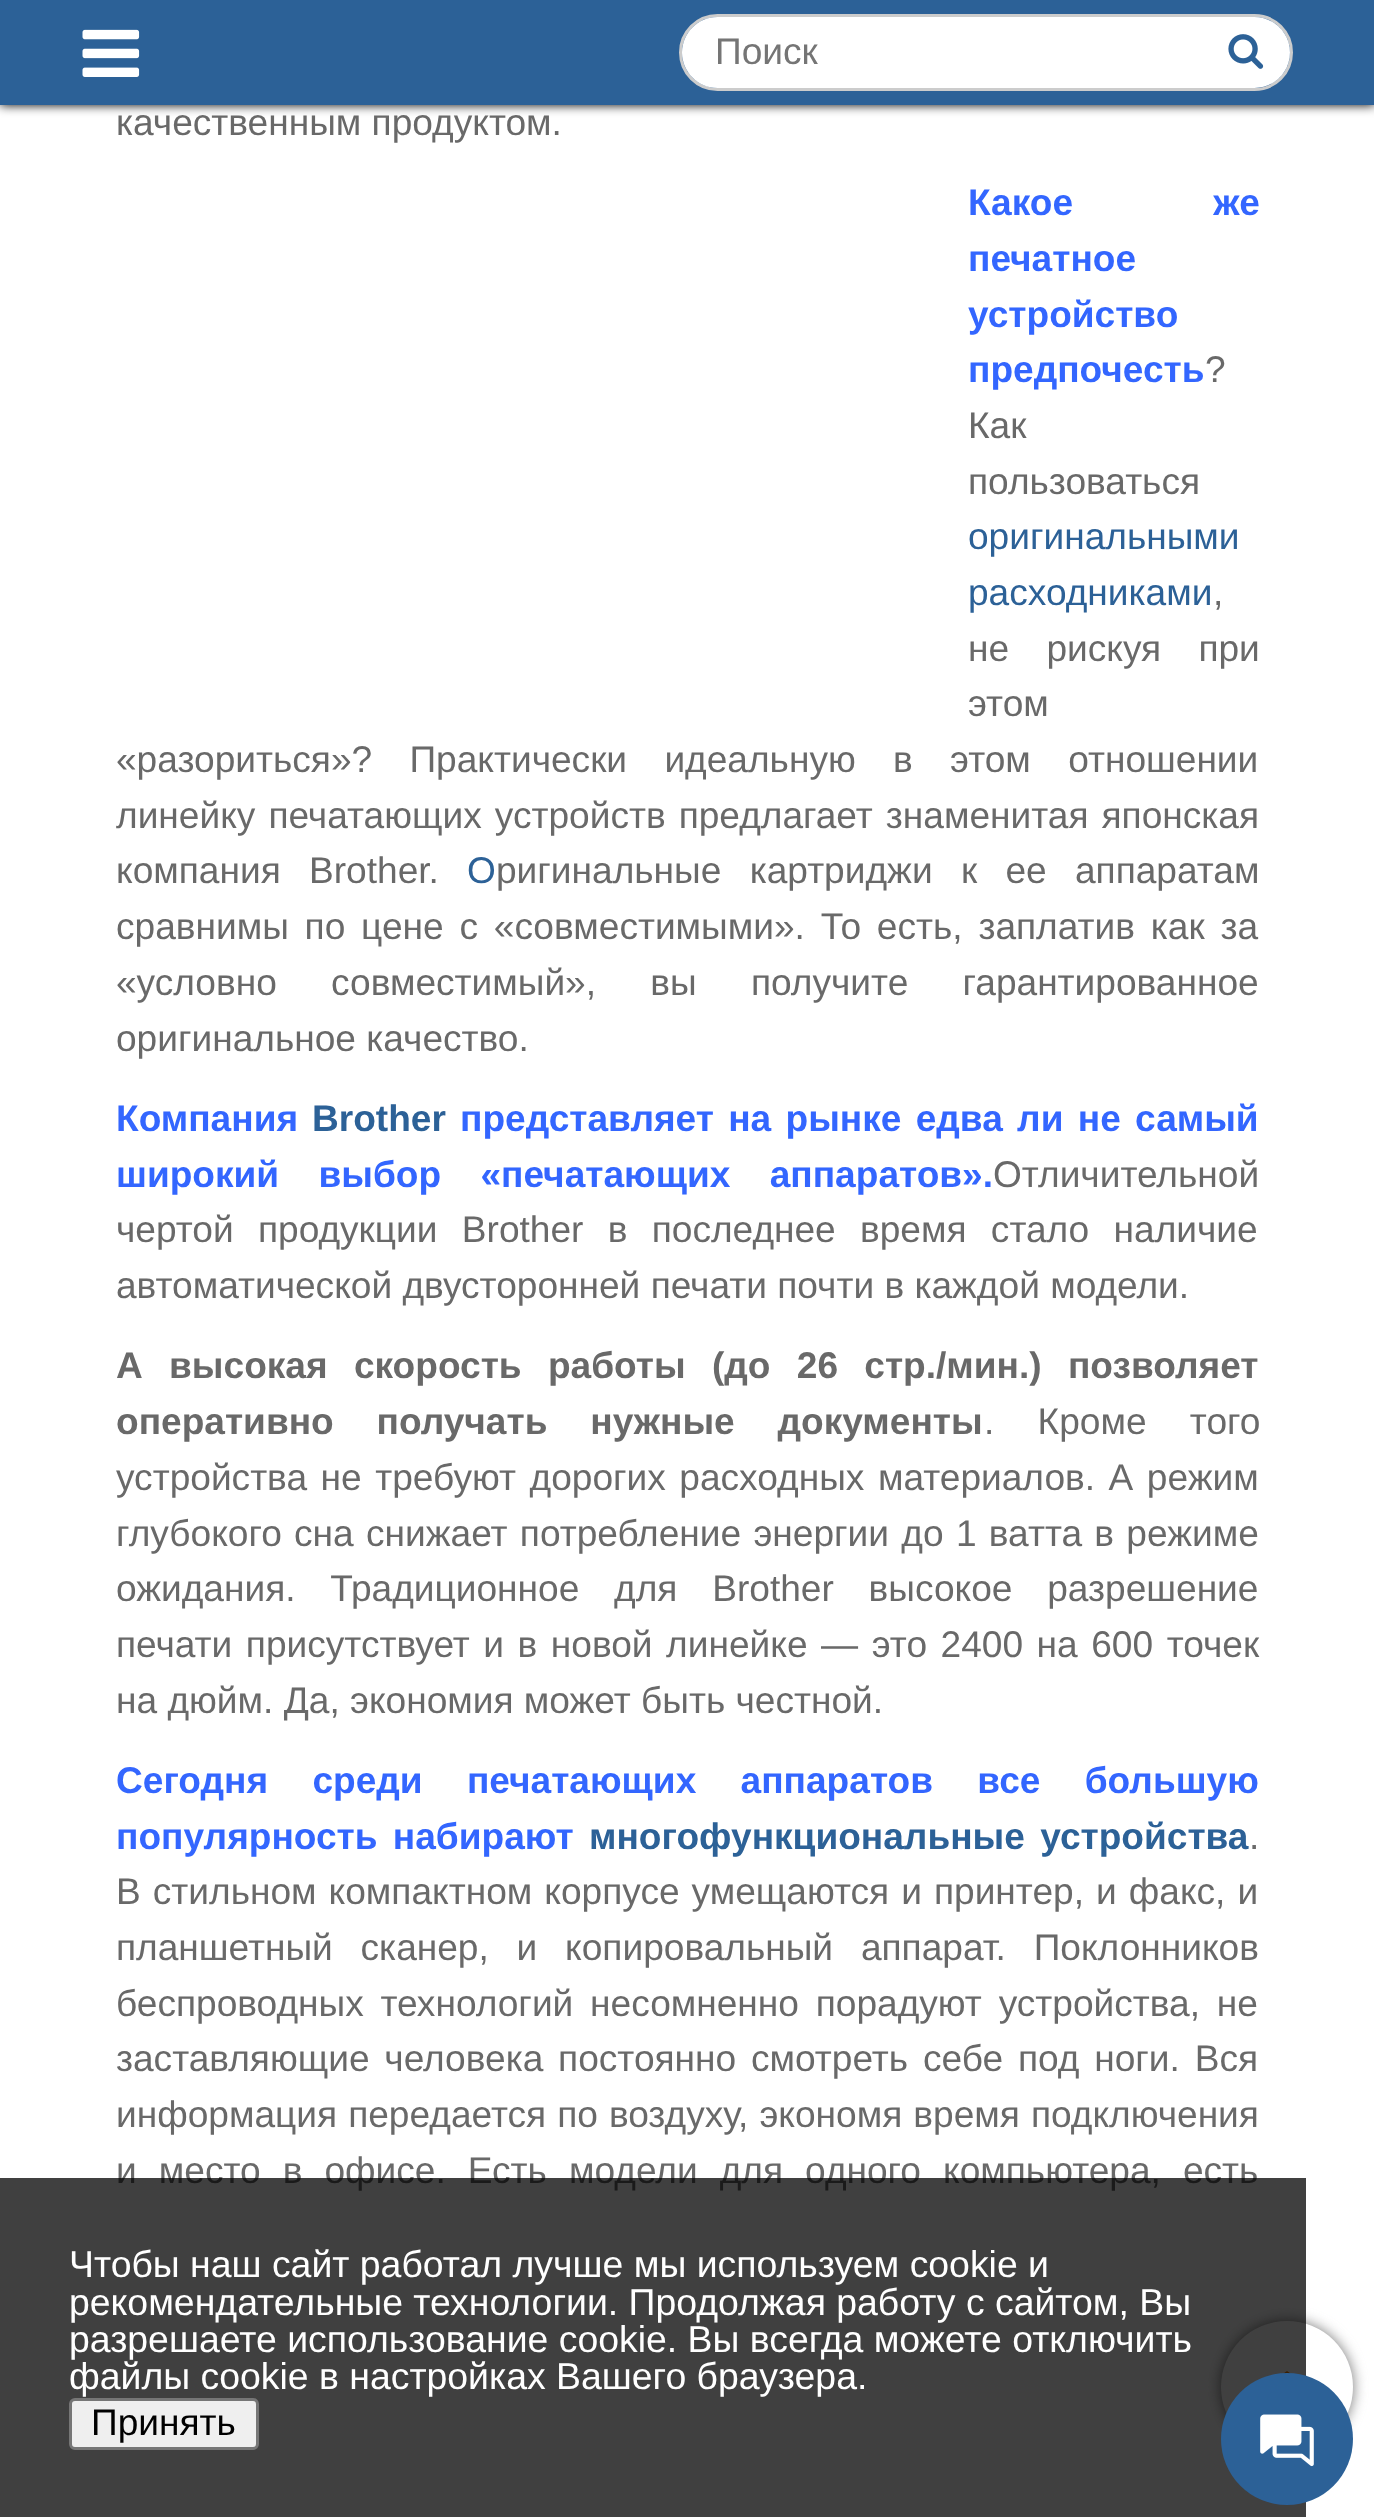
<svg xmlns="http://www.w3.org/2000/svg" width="1374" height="2517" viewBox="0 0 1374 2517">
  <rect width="100%" height="100%" fill="#fff"/>
  <path d="M0 0h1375v105H0z" fill="#000" filter="blur(5.5px)"/>
  <path d="M0 0h1374v105H0z" fill="#2c6197"/>
  <image x="82" y="29" width="58" height="48" href="img/1.png"/>
  <rect x="680.5" y="15.5" width="611" height="74" rx="37" fill="none" stroke="#ccc" stroke-width="3"/>
  <path d="M717.5 17H1202V88H717.5C698 88 682 72 682 52.5C682 33 698 17 717.5 17Z" fill="#fff"/>
  <path d="M1202 17H1254.5C1274 17 1290 33 1290 52.5C1290 72 1274 88 1254.5 88H1202Z" fill="#fff"/>
  <image x="1228" y="34" width="36" height="35" href="img/2.png"/>
  <rect x="1221" y="2321" width="132" height="132" rx="66" fill="#777" filter="blur(7px)"/>
  <circle cx="1287" cy="2387" r="66" fill="#fff"/>
  <path d="M1311 2394C1312 2396 1311 2397 1310 2398C1307 2401 1306 2399 1303 2396L1287 2380L1267 2399C1266 2400 1265 2399 1264 2398C1261 2395 1263 2394 1267 2391L1282 2375C1288 2370 1286 2370 1292 2375Z" fill="#eb7e00"/>
  <text x="715" y="64" font-family="Liberation Sans" font-size="37.1" fill="#757575">Поиск</text>
  <text x="116" y="135" font-family="Liberation Sans" font-size="37.1" fill="#696969">качественным продуктом.</text>
  <g font-family="Liberation Sans" font-size="37.1" font-weight="bold" fill="#36f">
    <text x="968" y="215" word-spacing="130">Какое же</text>
    <text x="968" y="271">печатное</text>
    <text x="968" y="327">устройство</text>
    <text x="968" y="382">предпочесть</text>
  </g>
  <g font-family="Liberation Sans" font-size="37.1" fill="#696969">
    <text x="1205" y="382">?</text>
    <text x="968" y="438">Как</text>
    <text x="968" y="494">пользоваться</text>
  </g>
  <g font-family="Liberation Sans" font-size="37.1" fill="#2c6197">
    <text x="968" y="549">оригинальными</text>
    <text x="968" y="605">расходниками</text>
  </g>
  <g font-family="Liberation Sans" font-size="37.1" fill="#696969">
    <text x="1213" y="605">,</text>
    <text x="968" y="661" word-spacing="27">не рискуя при</text>
    <text x="968" y="716">этом</text>
    <text x="116" y="772" word-spacing="27">«разориться»? Практически идеальную в этом отношении</text>
    <text x="116" y="828" word-spacing="2.75">линейку печатающих устройств предлагает знаменитая японская</text>
    <text x="116" y="883" word-spacing="18">компания Brother.</text>
  </g>
  <text x="467" y="883" font-family="Liberation Sans" font-size="37.1" fill="#2c6197">О</text>
  <g font-family="Liberation Sans" font-size="37.1" fill="#696969">
    <text x="496" y="883" word-spacing="18">ригинальные картриджи к ее аппаратам</text>
    <text x="116" y="939" word-spacing="5.5">сравнимы по цене с «совместимыми». То есть, заплатив как за</text>
    <text x="116" y="995" word-spacing="44">«условно совместимый», вы получите гарантированное</text>
    <text x="116" y="1051">оригинальное качество.</text>
  </g>
  <text x="116" y="1131" font-family="Liberation Sans" font-size="37.1" font-weight="bold" fill="#36f">Компания</text>
  <text x="312" y="1131" font-family="Liberation Sans" font-size="37.1" font-weight="bold" fill="#2c6197">Brother</text>
  <g font-family="Liberation Sans" font-size="37.1" font-weight="bold" fill="#36f">
    <text x="460" y="1131" word-spacing="4">представляет на рынке едва ли не самый</text>
    <text x="116" y="1187" word-spacing="29">широкий выбор «печатающих аппаратов».</text>
  </g>
  <g font-family="Liberation Sans" font-size="37.1" fill="#696969">
    <text x="993" y="1187">Отличительной</text>
    <text x="116" y="1242" word-spacing="14">чертой продукции Brother в последнее время стало наличие</text>
    <text x="116" y="1298">автоматической двусторонней печати почти в каждой модели.</text>
  </g>
  <g font-family="Liberation Sans" font-size="37.1" font-weight="bold" fill="#696969">
    <text x="116" y="1378" word-spacing="16">А высокая скорость работы (до 26 стр./мин.) позволяет</text>
    <text x="116" y="1434" word-spacing="32.5">оперативно получать нужные документы</text>
  </g>
  <g font-family="Liberation Sans" font-size="37.1" fill="#696969">
    <text x="984" y="1434" word-spacing="33">. Кроме того</text>
    <text x="116" y="1490" word-spacing="3.25">устройства не требуют дорогих расходных материалов. А режим</text>
    <text x="116" y="1546" word-spacing="2">глубокого сна снижает потребление энергии до 1 ватта в режиме</text>
    <text x="116" y="1601" word-spacing="24.5">ожидания. Традиционное для Brother высокое разрешение</text>
    <text x="116" y="1657" word-spacing="3.25">печати присутствует и в новой линейке — это 2400 на 600 точек</text>
    <text x="116" y="1713">на дюйм. Да, экономия может быть честной.</text>
  </g>
  <g font-family="Liberation Sans" font-size="37.1" font-weight="bold" fill="#36f">
    <text x="116" y="1793" word-spacing="34">Сегодня среди печатающих аппаратов все большую</text>
    <text x="116" y="1849" word-spacing="5">популярность набирают</text>
  </g>
  <text x="589" y="1849" word-spacing="5" font-family="Liberation Sans" font-size="37.1" font-weight="bold" fill="#2c6197">многофункциональные устройства</text>
  <g font-family="Liberation Sans" font-size="37.1" fill="#696969">
    <text x="1249" y="1849">.</text>
    <text x="116" y="1904" word-spacing="1.75">В стильном компактном корпусе умещаются и принтер, и факс, и</text>
    <text x="116" y="1960" word-spacing="17.5">планшетный сканер, и копировальный аппарат. Поклонников</text>
    <text x="116" y="2016" word-spacing="6.5">беспроводных технологий несомненно порадуют устройства, не</text>
    <text x="116" y="2071" word-spacing="4.5">заставляющие человека постоянно смотреть себе под ноги. Вся</text>
    <text x="116" y="2127" word-spacing="0.75">информация передается по воздуху, экономя время подключения</text>
    <text x="116" y="2183" word-spacing="11.75">и место в офисе. Есть модели для одного компьютера, есть</text>
  </g>
  <path d="M0 2178h1306v339H0z" fill="#000000bf"/>
  <g font-family="Liberation Sans" font-size="37.4" fill="#fff">
    <text x="69" y="2277">Чтобы наш сайт работал лучше мы используем cookie и</text>
    <text x="69" y="2315">рекомендательные технологии. Продолжая работу с сайтом, Вы</text>
    <text x="69" y="2352">разрешаете использование cookie. Вы всегда можете отключить</text>
    <text x="69" y="2389">файлы cookie в настройках Вашего браузера.</text>
  </g>
  <rect x="70.5" y="2399.5" width="187" height="49" rx="4.5" fill="#efefef" stroke="#767676" stroke-width="3"/>
  <text x="91" y="2435" font-family="Liberation Sans" font-size="37.1" fill="#000">Принять</text>
  <circle cx="1287" cy="2439" r="66" fill="#2c6197"/>
  <image x="1260" y="2414" width="54" height="53" href="img/3.png"/>
</svg>
